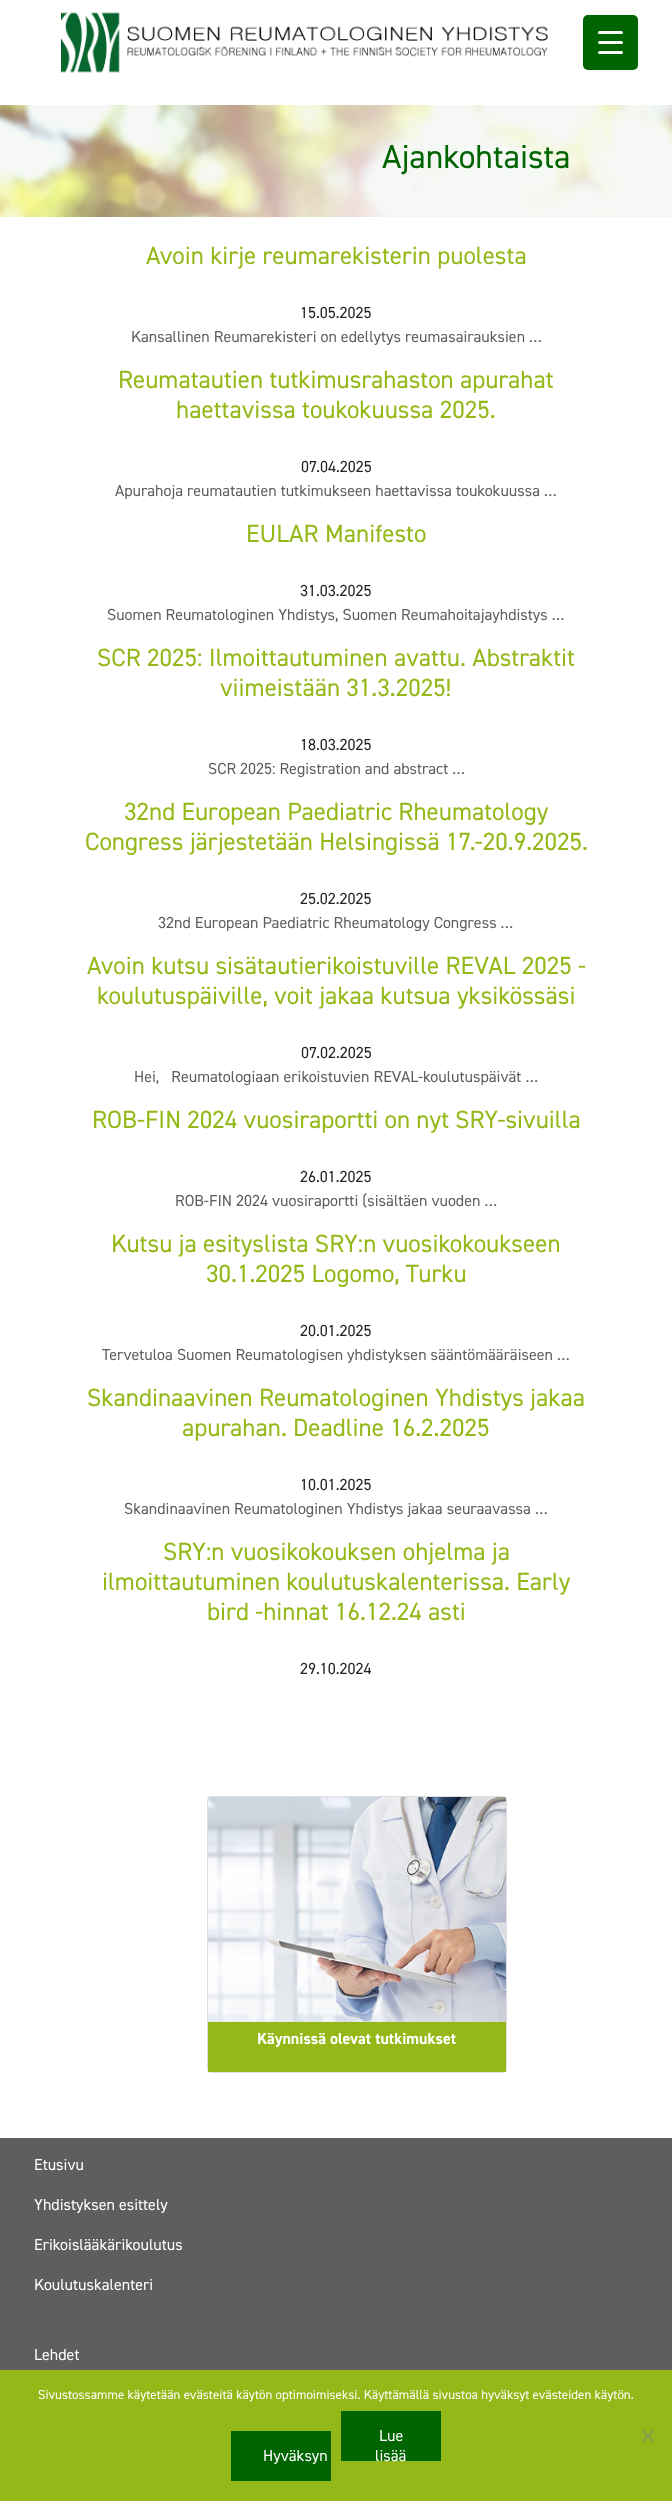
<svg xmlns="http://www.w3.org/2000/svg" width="672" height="2501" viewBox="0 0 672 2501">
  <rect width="100%" height="100%" fill="#fff"/>
  <image x="61" y="12" width="487" height="61" href="img/1.png"/>
  <rect x="583" y="15" width="55" height="55" rx="5" fill="#006400"/>
  <rect x="598" y="41" width="25" height="3" rx="1.5" fill="#fff"/>
  <rect x="598" y="31" width="25" height="3" rx="1.5" fill="#fff"/>
  <rect x="598" y="51" width="25" height="3" rx="1.5" fill="#fff"/>
  <image x="0" y="105" width="672" height="112" href="img/2.png"/>
  <rect x="207.5" y="1796.5" width="299" height="276" rx="3.5" fill="none" stroke="#dfdfdf"/>
  <image x="208" y="1797" width="298" height="225" href="img/3.png"/>
  <path d="M208 2022h298v50H208z" fill="#94b818"/>
  <path d="M0 2138h672v232H0z" fill="#5e5e5e"/>
  <path d="M0 2370h672v131H0z" fill="#94b818"/>
  <path d="M231 2431h100v50H231z" fill="#006400"/>
  <path d="M341 2411h100v50H341z" fill="#006400"/>
  <path d="M652.5 2430L654 2431.5L643.5 2442L642 2440.5Z" fill="#8a9c4c"/>
  <path d="M642 2431.5L643.5 2430L654 2440.5L652.5 2442Z" fill="#8a9c4c"/>
  <text x="382" y="168" font-family="'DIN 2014'" font-size="33.5" fill="#006400">Ajankohtaista</text>
  <text x="146" y="264" font-family="'DIN 2014'" font-size="25" fill="#94b818">Avoin kirje reumarekisterin puolesta</text>
  <text x="300" y="318" font-family="'DIN 2014'" font-size="16" fill="#212529">15.05.2025</text>
  <text x="131" y="342" font-family="'DIN 2014'" font-size="16" fill="#5e5e5e">Kansallinen Reumarekisteri on edellytys reumasairauksien …</text>
  <g font-family="'DIN 2014'" font-size="25" fill="#94b818">
    <text x="118" y="388">Reumatautien tutkimusrahaston apurahat</text>
    <text x="176" y="418">haettavissa toukokuussa 2025.</text>
  </g>
  <text x="301" y="472" font-family="'DIN 2014'" font-size="16" fill="#212529">07.04.2025</text>
  <text x="115" y="496" font-family="'DIN 2014'" font-size="16" fill="#5e5e5e">Apurahoja reumatautien tutkimukseen haettavissa toukokuussa …</text>
  <text x="246" y="542" font-family="'DIN 2014'" font-size="25" fill="#94b818">EULAR Manifesto</text>
  <text x="300" y="596" font-family="'DIN 2014'" font-size="16" fill="#212529">31.03.2025</text>
  <text x="107" y="620" font-family="'DIN 2014'" font-size="16" fill="#5e5e5e">Suomen Reumatologinen Yhdistys, Suomen Reumahoitajayhdistys …</text>
  <g font-family="'DIN 2014'" font-size="25" fill="#94b818">
    <text x="97" y="666">SCR 2025: Ilmoittautuminen avattu. Abstraktit</text>
    <text x="220" y="696">viimeistään 31.3.2025!</text>
  </g>
  <text x="300" y="750" font-family="'DIN 2014'" font-size="16" fill="#212529">18.03.2025</text>
  <text x="208" y="774" font-family="'DIN 2014'" font-size="16" fill="#5e5e5e">SCR 2025: Registration and abstract …</text>
  <g font-family="'DIN 2014'" font-size="25" fill="#94b818">
    <text x="124" y="820">32nd European Paediatric Rheumatology</text>
    <text x="85" y="850">Congress järjestetään Helsingissä 17.-20.9.2025.</text>
  </g>
  <text x="300" y="904" font-family="'DIN 2014'" font-size="16" fill="#212529">25.02.2025</text>
  <text x="158" y="928" font-family="'DIN 2014'" font-size="16" fill="#5e5e5e">32nd European Paediatric Rheumatology Congress …</text>
  <g font-family="'DIN 2014'" font-size="25" fill="#94b818">
    <text x="87" y="974">Avoin kutsu sisätautierikoistuville REVAL 2025 -</text>
    <text x="97" y="1004">koulutuspäiville, voit jakaa kutsua yksikössäsi</text>
  </g>
  <text x="301" y="1058" font-family="'DIN 2014'" font-size="16" fill="#212529">07.02.2025</text>
  <text x="134" y="1082" font-family="'DIN 2014'" font-size="16" fill="#5e5e5e" xml:space="preserve">Hei,   Reumatologiaan erikoistuvien REVAL-koulutuspäivät …</text>
  <text x="92" y="1128" font-family="'DIN 2014'" font-size="25" fill="#94b818">ROB-FIN 2024 vuosiraportti on nyt SRY-sivuilla</text>
  <text x="300" y="1182" font-family="'DIN 2014'" font-size="16" fill="#212529">26.01.2025</text>
  <text x="175" y="1206" font-family="'DIN 2014'" font-size="16" fill="#5e5e5e">ROB-FIN 2024 vuosiraportti (sisältäen vuoden …</text>
  <g font-family="'DIN 2014'" font-size="25" fill="#94b818">
    <text x="111" y="1252">Kutsu ja esityslista SRY:n vuosikokoukseen</text>
    <text x="206" y="1282">30.1.2025 Logomo, Turku</text>
  </g>
  <text x="300" y="1336" font-family="'DIN 2014'" font-size="16" fill="#212529">20.01.2025</text>
  <text x="102" y="1360" font-family="'DIN 2014'" font-size="16" fill="#5e5e5e">Tervetuloa Suomen Reumatologisen yhdistyksen sääntömääräiseen …</text>
  <g font-family="'DIN 2014'" font-size="25" fill="#94b818">
    <text x="87" y="1406">Skandinaavinen Reumatologinen Yhdistys jakaa</text>
    <text x="182" y="1436">apurahan. Deadline 16.2.2025</text>
  </g>
  <text x="300" y="1490" font-family="'DIN 2014'" font-size="16" fill="#212529">10.01.2025</text>
  <text x="124" y="1514" font-family="'DIN 2014'" font-size="16" fill="#5e5e5e">Skandinaavinen Reumatologinen Yhdistys jakaa seuraavassa …</text>
  <g font-family="'DIN 2014'" font-size="25" fill="#94b818">
    <text x="163" y="1560">SRY:n vuosikokouksen ohjelma ja</text>
    <text x="102" y="1590">ilmoittautuminen koulutuskalenterissa. Early</text>
    <text x="207" y="1620">bird -hinnat 16.12.24 asti</text>
  </g>
  <text x="300" y="1674" font-family="'DIN 2014'" font-size="16" fill="#212529">29.10.2024</text>
  <text x="257" y="2044" font-family="'DIN 2014'" font-size="16" font-weight="bold" fill="#fff">Käynnissä olevat tutkimukset</text>
  <g font-family="'DIN 2014'" font-size="16" fill="#fff">
    <text x="34" y="2170">Etusivu</text>
    <text x="34" y="2210">Yhdistyksen esittely</text>
    <text x="34" y="2250">Erikoislääkärikoulutus</text>
    <text x="34" y="2290">Koulutuskalenteri</text>
    <text x="34" y="2360">Lehdet</text>
  </g>
  <text x="38" y="2399" font-family="'DIN 2014'" font-size="13" fill="#fff">Sivustossamme käytetään evästeitä käytön optimoimiseksi. Käyttämällä sivustoa hyväksyt evästeiden käytön.</text>
  <g font-family="'DIN 2014'" font-size="16" fill="#fff">
    <text x="263" y="2461">Hyväksyn</text>
    <text x="379" y="2441">Lue</text>
    <text x="375" y="2461">lisää</text>
  </g>
</svg>
